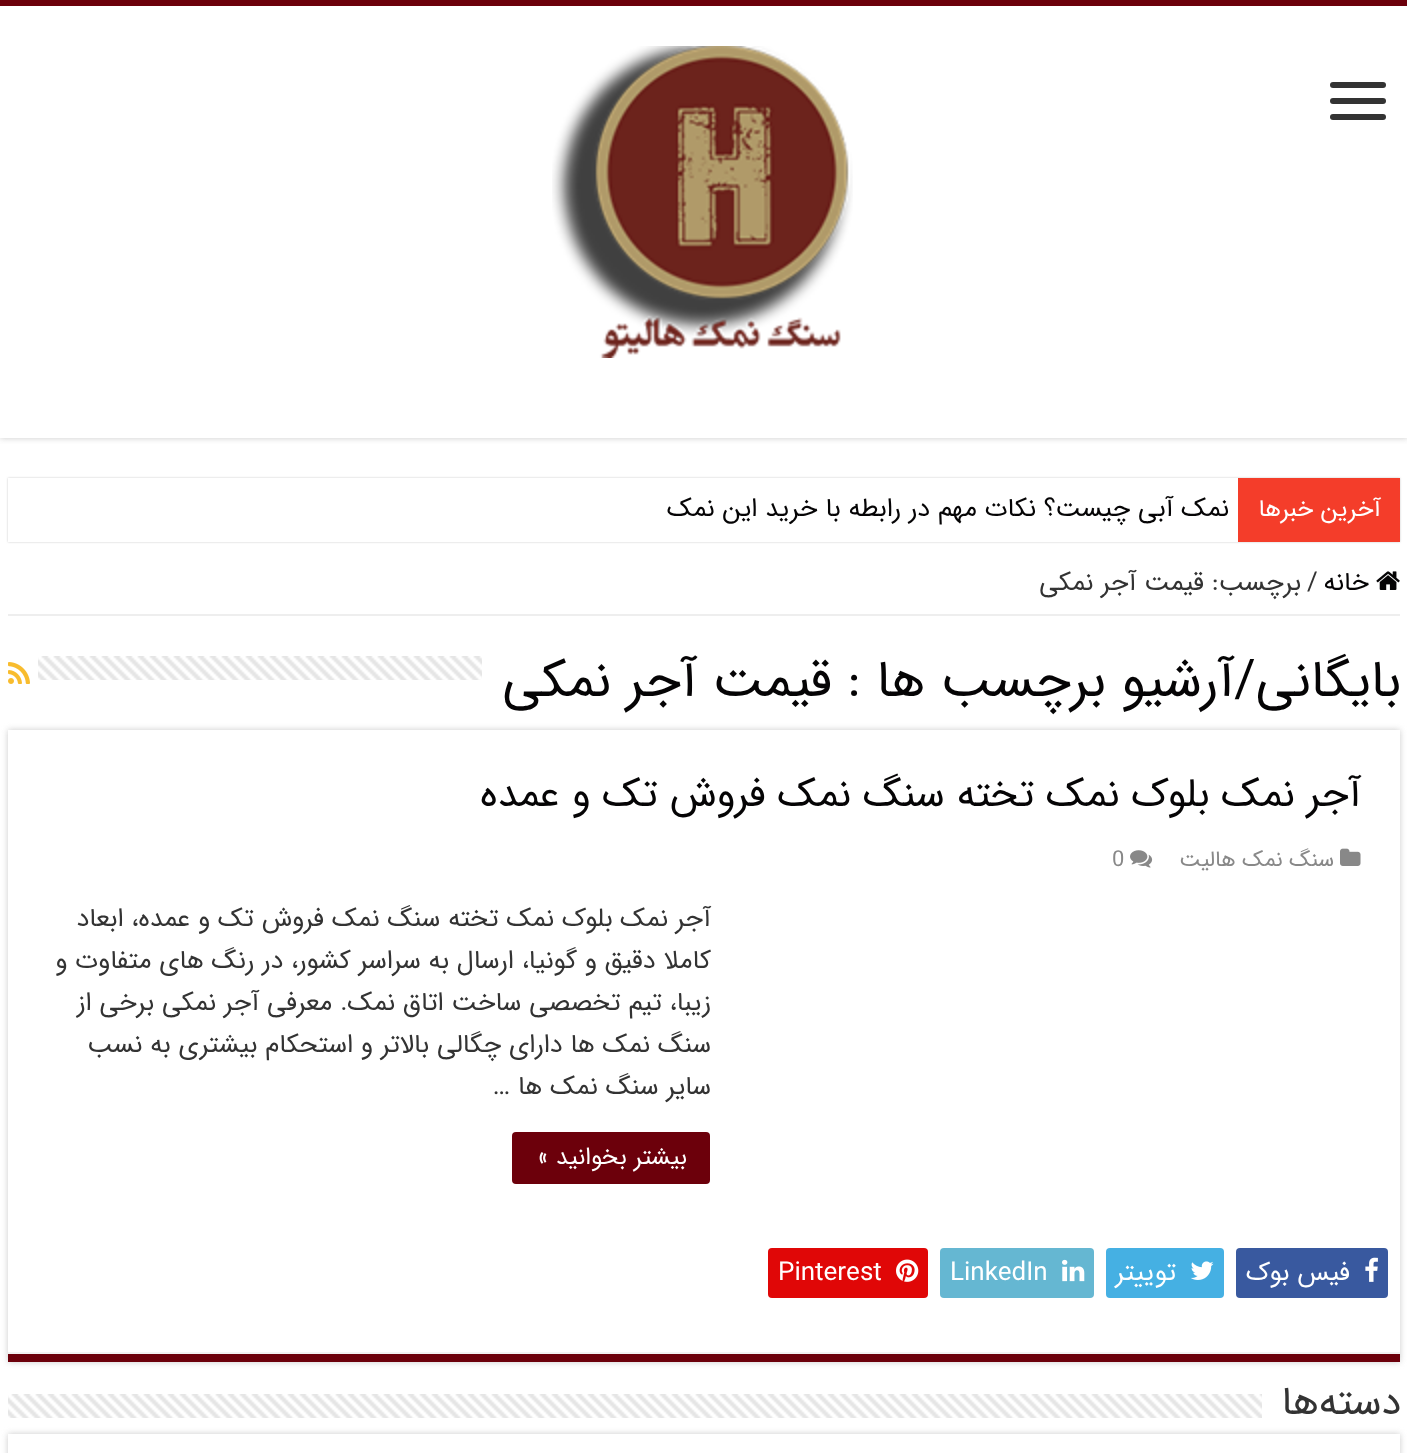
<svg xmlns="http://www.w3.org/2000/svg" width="1407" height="1453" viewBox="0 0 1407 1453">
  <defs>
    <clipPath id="clip1"><path d="M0 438h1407v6H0z"/></clipPath>
    <clipPath id="clip2"><path d="M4 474H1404V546H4ZM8 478H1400V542H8Z" clip-rule="evenodd"/></clipPath>
    <clipPath id="clip3"><path d="M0 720H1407V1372H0ZM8 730H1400V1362H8Z" clip-rule="evenodd"/></clipPath>
    <clipPath id="clip4"><path d="M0 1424H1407V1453H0ZM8 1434H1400V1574H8Z" clip-rule="evenodd"/></clipPath>
  </defs>
  <rect width="100%" height="100%" fill="#fff"/>
  <g clip-path="url(#clip1)">
    <path d="M0 0h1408v438H0z" fill="#cacaca" filter="blur(3px)"/>
  </g>
  <path d="M0 0h1407v6H0z" fill="#6c000b"/>
  <rect x="1330" y="82" width="56" height="6" rx="3" fill="#333"/>
  <rect x="1330" y="98" width="56" height="6" rx="3" fill="#333"/>
  <rect x="1330" y="114" width="56" height="6" rx="3" fill="#333"/>
  <image x="552" y="46" width="301" height="312" href="img/1.png"/>
  <g clip-path="url(#clip2)">
    <path d="M8 478h1392v64H8z" fill="#cacaca" filter="blur(1px)"/>
  </g>
  <path d="M1238 478h162v64H1238z" fill="#f43d2a"/>
  <path d="M8 614h1392v2H8z" fill="#eee"/>
  <image x="1376" y="571" width="24" height="19" href="img/2.png"/>
  <image x="38" y="656" width="444" height="24" href="img/3.png"/>
  <image x="8" y="662" width="22" height="22" href="img/4.png"/>
  <g clip-path="url(#clip3)">
    <path d="M8 730h1392v632H8z" fill="#cacaca" filter="blur(3px)"/>
  </g>
  <path d="M8 1354h1392v8H8z" fill="#6c000b"/>
  <path d="M8 1352h1392v2H8z" fill="#f2f2f2"/>
  <image x="1340" y="848" width="21" height="18" href="img/5.png"/>
  <image x="1130" y="850" width="23" height="18" href="img/6.png"/>
  <rect x="512" y="1132" width="198" height="52" rx="4" fill="#6c000b"/>
  <rect x="1236" y="1248" width="152" height="50" rx="4" fill="#39599f"/>
  <image x="1365" y="1257" width="13" height="25" href="img/7.png"/>
  <rect x="1106" y="1248" width="118" height="50" rx="4" fill="#45b0e3"/>
  <image x="1190" y="1261" width="24" height="19" href="img/8.png"/>
  <rect x="940" y="1248" width="154" height="50" rx="4" fill="#65b7d2"/>
  <image x="1062" y="1259" width="23" height="23" href="img/9.png"/>
  <rect x="768" y="1248" width="160" height="50" rx="4" fill="#e00707"/>
  <image x="896" y="1259" width="23" height="23" href="img/10.png"/>
  <image x="8" y="1394" width="1254" height="24" href="img/11.png"/>
  <g clip-path="url(#clip4)">
    <path d="M8 1434h1392v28H8z" fill="#cacaca" filter="blur(3px)"/>
  </g>
  <text x="1381" y="516" font-family="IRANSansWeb" font-size="24" direction="rtl" fill="#fff">آخرین خبرها</text>
  <g font-family="IRANSansWeb" font-size="26" direction="rtl" fill="#050405">
    <text x="1229" y="516">نمک آبی چیست؟ نکات مهم در رابطه با خرید این نمک</text>
    <text x="1369" y="590">خانه</text>
  </g>
  <text x="1307" y="590" font-family="IRANSansWeb" font-size="26" fill="#333">/</text>
  <g font-family="IRANSansWeb" font-size="26" direction="rtl" fill="#333">
    <text x="1301" y="590">برچسب:</text>
    <text x="1204" y="590">قیمت آجر نمکی</text>
  </g>
  <g font-family="IRANSansWeb" font-size="52" direction="rtl" fill="#050405">
    <text x="1401" y="696">بایگانی/آرشیو برچسب ها :</text>
    <text x="832" y="696">قیمت آجر نمکی</text>
  </g>
  <text x="1361" y="806" font-family="IRANSansWeb" font-size="40" direction="rtl" fill="#050405">آجر نمک بلوک نمک تخته سنگ نمک فروش تک و عمده</text>
  <text x="1334" y="866" font-family="IRANSansWeb" font-size="22" direction="rtl" fill="#888">سنگ نمک هالیت</text>
  <text x="1112" y="866" font-family="IRANSansWeb" font-size="22" fill="#888">0</text>
  <g font-family="IRANSansWeb" font-size="26" direction="rtl" fill="#333">
    <text x="711" y="926">آجر نمک بلوک نمک تخته سنگ نمک فروش تک و عمده، ابعاد</text>
    <text x="711" y="968">کاملا دقیق و گونیا، ارسال به سراسر کشور، در رنگ های متفاوت و</text>
    <text x="711" y="1010">زیبا، تیم تخصصی ساخت اتاق نمک. معرفی آجر نمکی برخی از</text>
    <text x="711" y="1052">سنگ نمک ها دارای چگالی بالاتر و استحکام بیشتری به نسب</text>
    <text x="711" y="1094">سایر سنگ نمک ها …</text>
  </g>
  <text x="687" y="1164" font-family="IRANSansWeb" font-size="24" direction="rtl" fill="#fff">بیشتر بخوانید »</text>
  <g font-family="IRANSansWeb" font-size="26" direction="rtl" fill="#fff">
    <text x="1350" y="1280">فیس بوک</text>
    <text x="1176" y="1280">توییتر</text>
  </g>
  <g font-family="IRANSansWeb" font-size="26" fill="#fff">
    <text x="950" y="1280">LinkedIn</text>
    <text x="778" y="1280">Pinterest</text>
  </g>
  <text x="1401" y="1414" font-family="IRANSansWeb" font-size="40" direction="rtl" fill="#333">دسته‌ها</text>
</svg>
